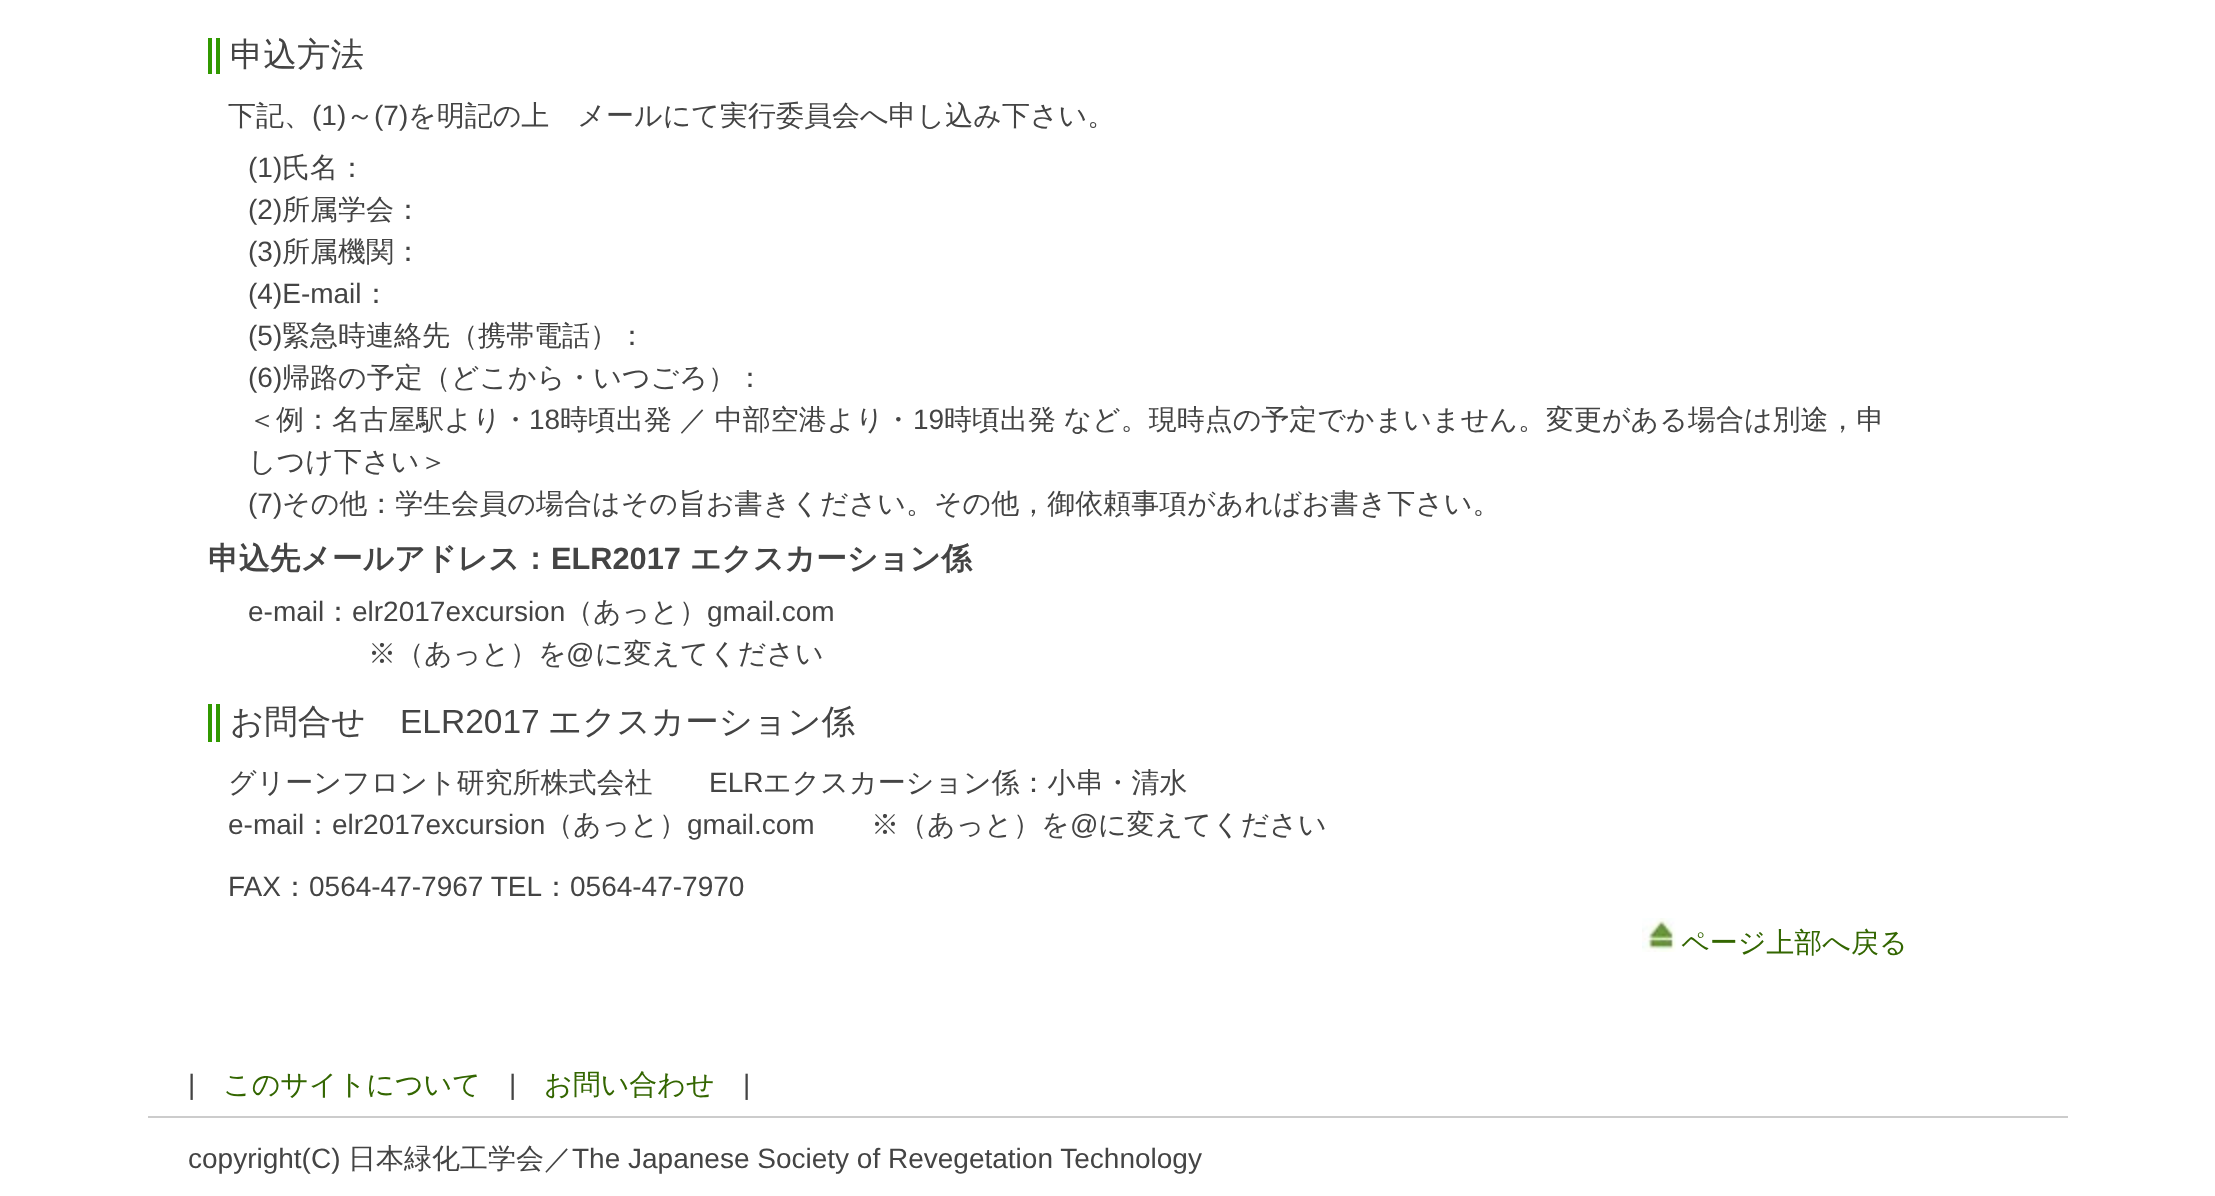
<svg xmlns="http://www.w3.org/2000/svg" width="2215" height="1196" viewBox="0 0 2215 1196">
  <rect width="100%" height="100%" fill="#fff"/>
  <path d="M208 38h4v36H208z" fill="#319900"/>
  <path d="M216 38h4v36H216z" fill="#319900"/>
  <path d="M208 704h4v38H208z" fill="#319900"/>
  <path d="M216 704h4v38H216z" fill="#319900"/>
  <image x="1642" y="918" width="34" height="34" href="img/1.png"/>
  <path d="M148 1116h1920v2H148z" fill="#ccc"/>
  <text x="230" y="66" font-family="WenQuanYi Zen Hei" font-size="33.5" font-weight="500" fill="#444">申込方法</text>
  <text x="228" y="125" font-family="WenQuanYi Zen Hei" font-size="28" font-weight="500" fill="#444">下記、</text>
  <text x="312" y="125" font-family="Liberation Sans" font-size="28" fill="#444">(1)</text>
  <text x="346" y="125" font-family="WenQuanYi Zen Hei" font-size="28" font-weight="500" fill="#444">～</text>
  <text x="374" y="125" font-family="Liberation Sans" font-size="28" fill="#444">(7)</text>
  <text x="408" y="125" font-family="WenQuanYi Zen Hei" font-size="28" font-weight="500" fill="#444">を明記の上　メールにて実行委員会へ申し込み下さい。</text>
  <text x="248" y="177" font-family="Liberation Sans" font-size="28" fill="#444">(1)</text>
  <text x="282" y="177" font-family="WenQuanYi Zen Hei" font-size="28" font-weight="500" fill="#444">氏名：</text>
  <text x="248" y="219" font-family="Liberation Sans" font-size="28" fill="#444">(2)</text>
  <text x="282" y="219" font-family="WenQuanYi Zen Hei" font-size="28" font-weight="500" fill="#444">所属学会：</text>
  <text x="248" y="261" font-family="Liberation Sans" font-size="28" fill="#444">(3)</text>
  <text x="282" y="261" font-family="WenQuanYi Zen Hei" font-size="28" font-weight="500" fill="#444">所属機関：</text>
  <text x="248" y="303" font-family="Liberation Sans" font-size="28" fill="#444">(4)E-mail</text>
  <text x="362" y="303" font-family="WenQuanYi Zen Hei" font-size="28" font-weight="500" fill="#444">：</text>
  <text x="248" y="345" font-family="Liberation Sans" font-size="28" fill="#444">(5)</text>
  <text x="282" y="345" font-family="WenQuanYi Zen Hei" font-size="28" font-weight="500" fill="#444">緊急時連絡先（携帯電話）：</text>
  <text x="248" y="387" font-family="Liberation Sans" font-size="28" fill="#444">(6)</text>
  <g font-family="WenQuanYi Zen Hei" font-size="28" font-weight="500" fill="#444">
    <text x="282" y="387">帰路の予定（どこから・いつごろ）：</text>
    <text x="248" y="429">＜例：名古屋駅より・</text>
  </g>
  <text x="529" y="429" font-family="Liberation Sans" font-size="28" fill="#444">18</text>
  <text x="560" y="429" word-spacing="-1" font-family="WenQuanYi Zen Hei" font-size="28" font-weight="500" fill="#444">時頃出発 ／ 中部空港より・</text>
  <text x="913" y="429" font-family="Liberation Sans" font-size="28" fill="#444">19</text>
  <g font-family="WenQuanYi Zen Hei" font-size="28" font-weight="500" fill="#444">
    <text x="944" y="429" word-spacing="-1">時頃出発 など。現時点の予定でかまいません。変更がある場合は別途，申</text>
    <text x="248" y="471">しつけ下さい＞</text>
  </g>
  <text x="248" y="513" font-family="Liberation Sans" font-size="28" fill="#444">(7)</text>
  <text x="282" y="513" font-family="WenQuanYi Zen Hei" font-size="28" font-weight="500" fill="#444">その他：学生会員の場合はその旨お書きください。その他，御依頼事項があればお書き下さい。</text>
  <text x="208" y="569" font-family="WenQuanYi Zen Hei" font-size="30.75" font-weight="bold" fill="#444">申込先メールアドレス：</text>
  <text x="551" y="569" font-family="Liberation Sans" font-size="30.75" font-weight="bold" fill="#444">ELR2017</text>
  <text x="690" y="569" font-family="WenQuanYi Zen Hei" font-size="30.75" font-weight="bold" fill="#444">エクスカーション係</text>
  <text x="248" y="621" font-family="Liberation Sans" font-size="28" fill="#444">e-mail</text>
  <text x="324" y="621" font-family="WenQuanYi Zen Hei" font-size="28" font-weight="500" fill="#444">：</text>
  <text x="352" y="621" font-family="Liberation Sans" font-size="28" fill="#444">elr2017excursion</text>
  <text x="565" y="621" font-family="WenQuanYi Zen Hei" font-size="28" font-weight="500" fill="#444">（あっと）</text>
  <text x="707" y="621" font-family="Liberation Sans" font-size="28" fill="#444">gmail.com</text>
  <text x="368" y="663" font-family="WenQuanYi Zen Hei" font-size="28" font-weight="500" fill="#444">※（あっと）を</text>
  <text x="566" y="663" font-family="Liberation Sans" font-size="28" fill="#444">@</text>
  <text x="595" y="663" font-family="WenQuanYi Zen Hei" font-size="28" font-weight="500" fill="#444">に変えてください</text>
  <text x="230" y="733" font-family="WenQuanYi Zen Hei" font-size="33.5" font-weight="500" fill="#444">お問合せ</text>
  <text x="400" y="733" font-family="Liberation Sans" font-size="33.5" fill="#444">ELR2017</text>
  <text x="548" y="733" font-family="WenQuanYi Zen Hei" font-size="33.5" font-weight="500" fill="#444">エクスカーション係</text>
  <text x="228" y="792" font-family="WenQuanYi Zen Hei" font-size="28" font-weight="500" fill="#444">グリーンフロント研究所株式会社</text>
  <text x="709" y="792" font-family="Liberation Sans" font-size="28" fill="#444">ELR</text>
  <text x="763" y="792" font-family="WenQuanYi Zen Hei" font-size="28" font-weight="500" fill="#444">エクスカーション係：小串・清水</text>
  <text x="228" y="834" font-family="Liberation Sans" font-size="28" fill="#444">e-mail</text>
  <text x="304" y="834" font-family="WenQuanYi Zen Hei" font-size="28" font-weight="500" fill="#444">：</text>
  <text x="332" y="834" font-family="Liberation Sans" font-size="28" fill="#444">elr2017excursion</text>
  <text x="545" y="834" font-family="WenQuanYi Zen Hei" font-size="28" font-weight="500" fill="#444">（あっと）</text>
  <text x="687" y="834" font-family="Liberation Sans" font-size="28" fill="#444">gmail.com</text>
  <text x="871" y="834" font-family="WenQuanYi Zen Hei" font-size="28" font-weight="500" fill="#444">※（あっと）を</text>
  <text x="1070" y="834" font-family="Liberation Sans" font-size="28" fill="#444">@</text>
  <text x="1098" y="834" font-family="WenQuanYi Zen Hei" font-size="28" font-weight="500" fill="#444">に変えてください</text>
  <text x="228" y="896" font-family="Liberation Sans" font-size="28" fill="#444">FAX</text>
  <text x="281" y="896" font-family="WenQuanYi Zen Hei" font-size="28" font-weight="500" fill="#444">：</text>
  <text x="309" y="896" font-family="Liberation Sans" font-size="28" fill="#444">0564-47-7967 TEL</text>
  <text x="542" y="896" font-family="WenQuanYi Zen Hei" font-size="28" font-weight="500" fill="#444">：</text>
  <text x="570" y="896" font-family="Liberation Sans" font-size="28" fill="#444">0564-47-7970</text>
  <text x="1681" y="952" font-family="WenQuanYi Zen Hei" font-size="28" font-weight="500" fill="#360">ページ上部へ戻る</text>
  <text x="188" y="1094" font-family="Liberation Sans" font-size="28" fill="#444">|</text>
  <text x="223" y="1094" font-family="WenQuanYi Zen Hei" font-size="28" font-weight="500" fill="#360">このサイトについて</text>
  <text x="509" y="1094" font-family="Liberation Sans" font-size="28" fill="#444">|</text>
  <text x="544" y="1094" font-family="WenQuanYi Zen Hei" font-size="28" font-weight="500" fill="#360">お問い合わせ</text>
  <g font-family="Liberation Sans" font-size="28" fill="#444">
    <text x="743" y="1094">|</text>
    <text x="188" y="1168">copyright(C)</text>
  </g>
  <text x="348" y="1168" font-family="WenQuanYi Zen Hei" font-size="28" font-weight="500" fill="#444">日本緑化工学会／</text>
  <text x="572" y="1168" font-family="Liberation Sans" font-size="28" fill="#444">The Japanese Society of Revegetation Technology</text>
</svg>
